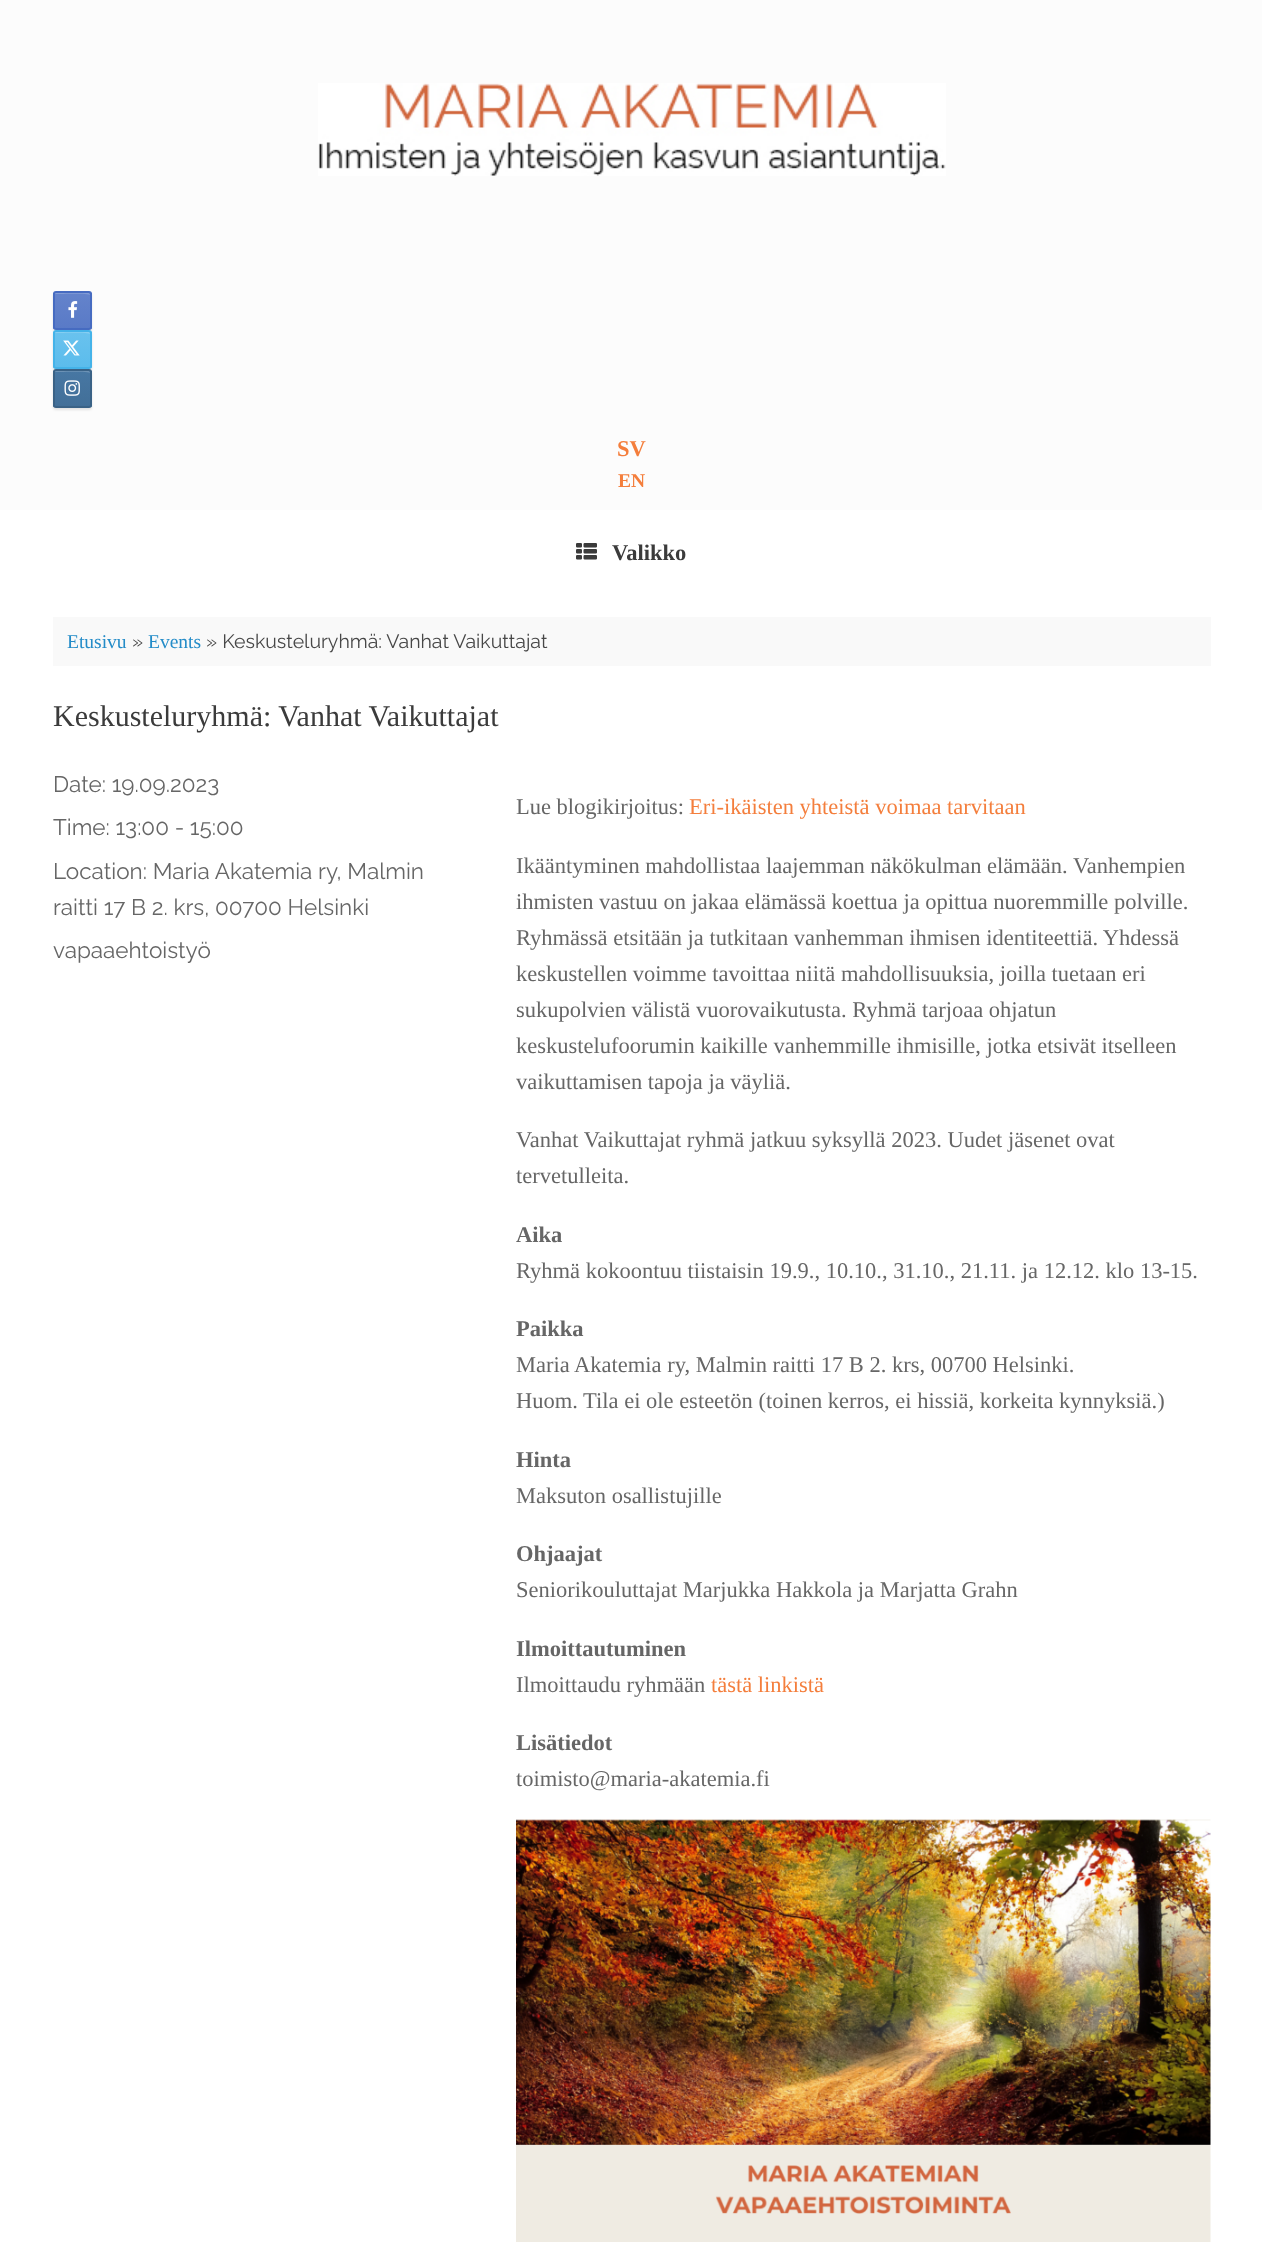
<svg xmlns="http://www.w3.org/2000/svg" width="1262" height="2242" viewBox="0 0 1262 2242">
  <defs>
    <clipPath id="clip1"><rect x="53" y="291" width="39" height="39" rx="3"/></clipPath>
    <linearGradient id="g1" gradientUnits="userSpaceOnUse" x1="72" y1="329" x2="72" y2="293"><stop offset="0" stop-color="#597ac7"/><stop offset="1" stop-color="#6483cb"/></linearGradient>
    <clipPath id="clip2"><rect x="53" y="330" width="39" height="39" rx="3"/></clipPath>
    <linearGradient id="g2" gradientUnits="userSpaceOnUse" x1="72" y1="368" x2="72" y2="332"><stop offset="0" stop-color="#5bbcec"/><stop offset="1" stop-color="#69c2ee"/></linearGradient>
    <clipPath id="clip3"><rect x="53" y="369" width="39" height="39" rx="3"/></clipPath>
    <linearGradient id="g3" gradientUnits="userSpaceOnUse" x1="72" y1="407" x2="72" y2="371"><stop offset="0" stop-color="#426f98"/><stop offset="1" stop-color="#4777a3"/></linearGradient>
  </defs>
  <rect width="100%" height="100%" fill="#fcfcfc"/>
  <image x="318" y="83" width="628" height="93" href="img/1.png"/>
  <rect x="53" y="293" width="39" height="39" rx="3" fill="#0000001a" filter="blur(1px)"/>
  <g clip-path="url(#clip1)">
    <path d="M53 293h39v36H53z" fill="url(#g1)"/>
  </g>
  <path d="M56 294C61.5 294 89 293 90 295C90 291.5 85 293 83 293H61C57 293 54 291.5 54 295.5C54 294.5 55 294 56 294Z" fill="#839cd5"/>
  <rect x="54" y="292" width="37" height="37" rx="2" fill="none" stroke="#466bc1" stroke-width="2"/>
  <image x="68" y="301" width="10" height="17" href="img/2.png"/>
  <rect x="53" y="332" width="39" height="39" rx="3" fill="#0000001a" filter="blur(1px)"/>
  <g clip-path="url(#clip2)">
    <path d="M53 332h39v36H53z" fill="url(#g2)"/>
  </g>
  <path d="M56 333C61.5 333 89 332 90 334C90 330.5 85 332 83 332H61C57 332 54 330.5 54 334.5C54 333.5 55 333 56 333Z" fill="#87cef1"/>
  <rect x="54" y="331" width="37" height="37" rx="2" fill="none" stroke="#44b3e9" stroke-width="2"/>
  <image x="63" y="340" width="17" height="16" href="img/3.png"/>
  <rect x="53" y="371" width="39" height="39" rx="3" fill="#0000001a" filter="blur(1px)"/>
  <g clip-path="url(#clip3)">
    <path d="M53 371h39v36H53z" fill="url(#g3)"/>
  </g>
  <path d="M56 372C61.5 372 89 371 90 373C90 369.5 85 371 83 371H61C57 371 54 369.5 54 373.5C54 372.5 55 372 56 372Z" fill="#6c92b5"/>
  <rect x="54" y="370" width="37" height="37" rx="2" fill="none" stroke="#3a6286" stroke-width="2"/>
  <image x="64" y="380" width="16" height="16" href="img/4.png"/>
  <path d="M0 510h1262v1732H0z" fill="#fff"/>
  <image x="576" y="543" width="21" height="17" href="img/5.png"/>
  <path d="M53 617h1158v49H53z" fill="#f9f9f9"/>
  <image x="516" y="1819" width="695" height="423" href="img/6.png"/>
  <text x="617" y="456" font-family="Liberation Serif" font-size="22.5" font-weight="bold" fill="#f47e3c">SV</text>
  <text x="618" y="487" font-family="Liberation Serif" font-size="19.5" font-weight="bold" fill="#f47e3c">EN</text>
  <text x="612" y="560" font-family="Liberation Serif" font-size="22.5" font-weight="bold" fill="#3b3b3b">Valikko</text>
  <text x="67" y="648" font-family="Liberation Serif" font-size="19.5" fill="#248cc8">Etusivu</text>
  <text x="132" y="648" font-family="Raleway" font-size="19.5" font-weight="100" fill="#474747">»</text>
  <text x="148" y="648" font-family="Liberation Serif" font-size="19.5" fill="#248cc8">Events</text>
  <text x="206" y="648" font-family="Raleway" font-size="19.5" font-weight="100" fill="#474747">» Keskusteluryhmä: Vanhat Vaikuttajat</text>
  <text x="53" y="726" font-family="Liberation Serif" font-size="30" fill="#3b3b3b">Keskusteluryhmä: Vanhat Vaikuttajat</text>
  <g font-family="Raleway" font-size="22.5" font-weight="100" fill="#666">
    <text x="53" y="792">Date: 19.09.2023</text>
    <text x="53" y="835">Time: 13:00 - 15:00</text>
    <text x="53" y="879">Location: Maria Akatemia ry, Malmin</text>
    <text x="53" y="915">raitti 17 B 2. krs, 00700 Helsinki</text>
    <text x="53" y="958">vapaaehtoistyö</text>
  </g>
  <text x="516" y="814" font-family="Liberation Serif" font-size="22.5" fill="#666">Lue blogikirjoitus:</text>
  <text x="689" y="814" font-family="Liberation Serif" font-size="22.5" fill="#f47e3c">Eri-ikäisten yhteistä voimaa tarvitaan</text>
  <g font-family="Liberation Serif" font-size="22.5" fill="#666">
    <text x="516" y="873">Ikääntyminen mahdollistaa laajemman näkökulman elämään. Vanhempien</text>
    <text x="516" y="909">ihmisten vastuu on jakaa elämässä koettua ja opittua nuoremmille polville.</text>
    <text x="516" y="945">Ryhmässä etsitään ja tutkitaan vanhemman ihmisen identiteettiä. Yhdessä</text>
    <text x="516" y="981">keskustellen voimme tavoittaa niitä mahdollisuuksia, joilla tuetaan eri</text>
    <text x="516" y="1017">sukupolvien välistä vuorovaikutusta. Ryhmä tarjoaa ohjatun</text>
    <text x="516" y="1053">keskustelufoorumin kaikille vanhemmille ihmisille, jotka etsivät itselleen</text>
    <text x="516" y="1089">vaikuttamisen tapoja ja väyliä.</text>
    <text x="516" y="1147">Vanhat Vaikuttajat ryhmä jatkuu syksyllä 2023. Uudet jäsenet ovat</text>
    <text x="516" y="1183">tervetulleita.</text>
  </g>
  <text x="516" y="1242" font-family="Liberation Serif" font-size="22.5" font-weight="bold" fill="#666">Aika</text>
  <text x="516" y="1278" font-family="Liberation Serif" font-size="22.5" fill="#666">Ryhmä kokoontuu tiistaisin 19.9., 10.10., 31.10., 21.11. ja 12.12. klo 13-15.</text>
  <text x="516" y="1336" font-family="Liberation Serif" font-size="22.5" font-weight="bold" fill="#666">Paikka</text>
  <g font-family="Liberation Serif" font-size="22.5" fill="#666">
    <text x="516" y="1372">Maria Akatemia ry, Malmin raitti 17 B 2. krs, 00700 Helsinki.</text>
    <text x="516" y="1408">Huom. Tila ei ole esteetön (toinen kerros, ei hissiä, korkeita kynnyksiä.)</text>
  </g>
  <text x="516" y="1467" font-family="Liberation Serif" font-size="22.5" font-weight="bold" fill="#666">Hinta</text>
  <text x="516" y="1503" font-family="Liberation Serif" font-size="22.5" fill="#666">Maksuton osallistujille</text>
  <text x="516" y="1561" font-family="Liberation Serif" font-size="22.5" font-weight="bold" fill="#666">Ohjaajat</text>
  <text x="516" y="1597" font-family="Liberation Serif" font-size="22.5" fill="#666">Seniorikouluttajat Marjukka Hakkola ja Marjatta Grahn</text>
  <text x="516" y="1656" font-family="Liberation Serif" font-size="22.5" font-weight="bold" fill="#666">Ilmoittautuminen</text>
  <text x="516" y="1692" font-family="Liberation Serif" font-size="22.5" fill="#666">Ilmoittaudu ryhmään</text>
  <text x="711" y="1692" font-family="Liberation Serif" font-size="22.5" fill="#f47e3c">tästä linkistä</text>
  <text x="516" y="1750" font-family="Liberation Serif" font-size="22.5" font-weight="bold" fill="#666">Lisätiedot</text>
  <text x="516" y="1786" font-family="Liberation Serif" font-size="22.5" fill="#666">toimisto@maria-akatemia.fi</text>
</svg>
